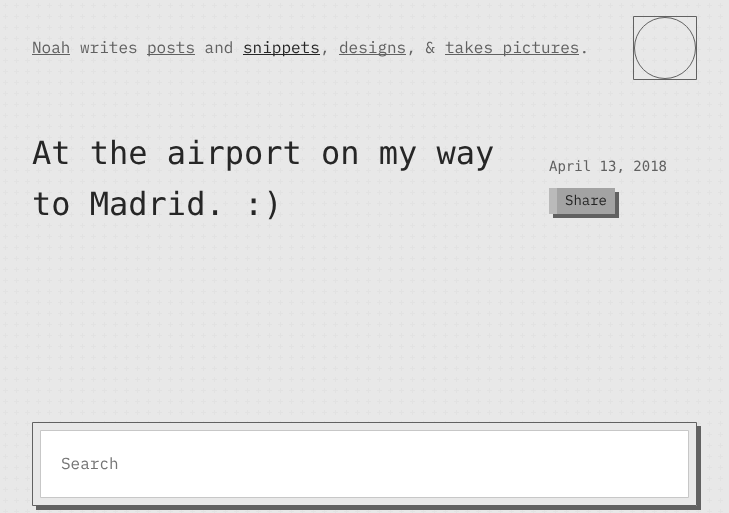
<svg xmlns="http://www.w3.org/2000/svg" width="729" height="513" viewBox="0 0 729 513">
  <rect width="100%" height="100%" fill="#e8e8e8"/>
  <image x="3" y="3" width="720" height="510" href="img/1.png"/>
  <path d="M32 54h38v1H32z" fill="#616161"/>
  <path d="M147 54h48v1H147z" fill="#616161"/>
  <path d="M243 54h77v1H243z" fill="#262626"/>
  <path d="M339 54h67v1H339z" fill="#616161"/>
  <path d="M445 54h134v1H445z" fill="#616161"/>
  <path d="M633.5 16.5h63v63H633.5z" fill="none" stroke="#616161"/>
  <circle cx="665" cy="48" r="30.5" fill="none" stroke="#616161"/>
  <path d="M553 214V218H619V192H615V214Z" fill="#616161"/>
  <path d="M557 188h58v26H557z" fill="#a3a3a3"/>
  <path d="M549 188h8v26H549z" fill="#bababa"/>
  <path d="M36 506V510H701V426H697V506Z" fill="#616161"/>
  <path d="M36 423h654v80H36z" fill="#e8e8e8"/>
  <path d="M32.5 422.5h664v83H32.5z" fill="none" stroke="#616161"/>
  <path d="M40.5 430.5h648v67H40.5z" fill="#fff" stroke="#c7c7c7"/>
  <g font-family="IBM Plex Mono" font-size="16" fill="#616161">
    <text x="32" y="53">Noah writes</text>
    <text x="147" y="53">posts and</text>
  </g>
  <text x="243" y="53" font-family="IBM Plex Mono" font-size="16" fill="#262626">snippets</text>
  <g font-family="IBM Plex Mono" font-size="16" fill="#616161">
    <text x="320" y="53">,</text>
    <text x="339" y="53">designs, &amp;</text>
    <text x="445" y="53">takes pictures.</text>
  </g>
  <g font-family="DejaVu Sans Mono" font-size="32" fill="#262626">
    <text x="32" y="164">At the airport on my way</text>
    <text x="32" y="215">to Madrid. :)</text>
  </g>
  <text x="549" y="171" font-family="DejaVu Sans Mono" font-size="14" fill="#616161">April 13, 2018</text>
  <text x="565" y="205" font-family="IBM Plex Mono" font-size="14" fill="#262626">Share</text>
  <text x="61" y="469" font-family="IBM Plex Mono" font-size="16" fill="#757575">Search</text>
</svg>
